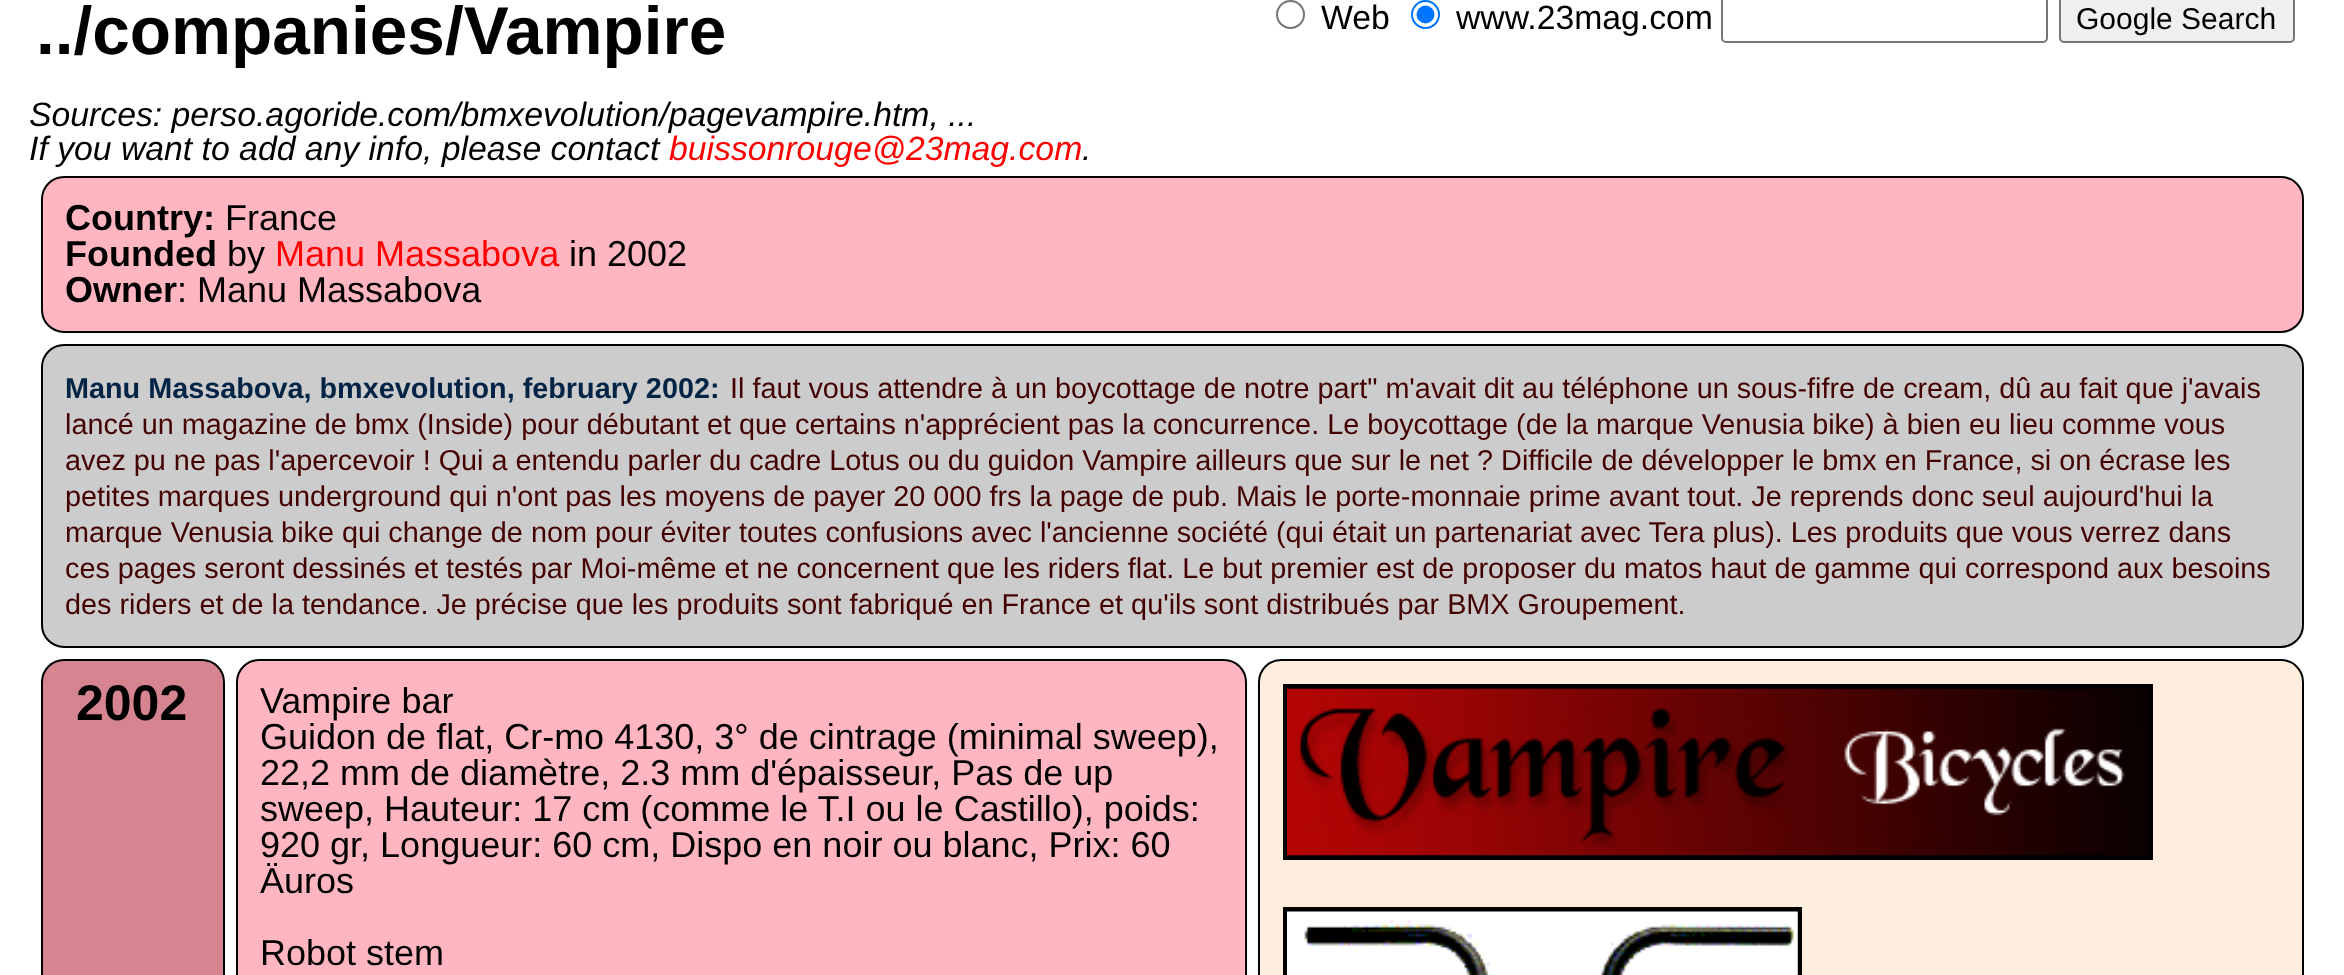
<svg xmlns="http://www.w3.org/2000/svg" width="2344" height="975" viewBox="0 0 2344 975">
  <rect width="100%" height="100%" fill="#fff"/>
  <circle cx="1290.5" cy="14.5" r="13.5" fill="none" stroke="#767676" stroke-width="2"/>
  <circle cx="1425.5" cy="14.5" r="13.5" fill="none" stroke="#0075ff" stroke-width="2"/>
  <circle cx="1425.5" cy="14.5" r="9" fill="#0075ff"/>
  <rect x="1722" y="-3" width="325" height="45" rx="4" fill="none" stroke="#767676" stroke-width="2"/>
  <rect x="2060" y="-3" width="234" height="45" rx="4" fill="#efefef" stroke="#767676" stroke-width="2"/>
  <rect x="42" y="177" width="2261" height="155" rx="22" fill="#ffb6c1" stroke="#000" stroke-width="2"/>
  <rect x="42" y="345" width="2261" height="302" rx="22" fill="#ccc" stroke="#000" stroke-width="2"/>
  <rect x="42" y="660" width="182" height="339" rx="22" fill="#d58490" stroke="#000" stroke-width="2"/>
  <rect x="237" y="660" width="1009" height="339" rx="22" fill="#ffb6c1" stroke="#000" stroke-width="2"/>
  <rect x="1259" y="660" width="1044" height="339" rx="22" fill="#fed" stroke="#000" stroke-width="2"/>
  <path d="M1285.5 686.5h865v171H1285.5z" fill="none" stroke="#000" stroke-width="5"/>
  <image x="1287" y="688" width="862" height="168" href="img/1.png"/>
  <path d="M1285.5 909.5h514v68H1285.5z" fill="none" stroke="#000" stroke-width="5"/>
  <image x="1287" y="911" width="511" height="64" href="img/2.png"/>
  <text x="36" y="54" font-family="Liberation Sans" font-size="67.5" font-weight="bold" fill="#000">../companies/Vampire</text>
  <g font-family="Liberation Sans" font-size="33.75" fill="#000">
    <text x="1321" y="29">Web</text>
    <text x="1456" y="29">www.23mag.com</text>
  </g>
  <text x="2076" y="29" font-family="Liberation Sans" font-size="30" fill="#000">Google Search</text>
  <g font-family="Liberation Sans" font-size="33.75" font-style="italic" fill="#000">
    <text x="29" y="126">Sources: perso.agoride.com/bmxevolution/pagevampire.htm, ...</text>
    <text x="29" y="160">If you want to add any info, please contact</text>
  </g>
  <text x="669" y="160" font-family="Liberation Sans" font-size="33.75" font-style="italic" fill="#f00">buissonrouge@23mag.com</text>
  <text x="1082" y="160" font-family="Liberation Sans" font-size="33.75" font-style="italic" fill="#000">.</text>
  <text x="65" y="230" font-family="Liberation Sans" font-size="36" font-weight="bold" fill="#000">Country:</text>
  <text x="225" y="230" font-family="Liberation Sans" font-size="36" fill="#000">France</text>
  <text x="65" y="266" font-family="Liberation Sans" font-size="36" font-weight="bold" fill="#000">Founded</text>
  <text x="227" y="266" font-family="Liberation Sans" font-size="36" fill="#000">by</text>
  <text x="275" y="266" font-family="Liberation Sans" font-size="36" fill="#f00">Manu Massabova</text>
  <text x="569" y="266" font-family="Liberation Sans" font-size="36" fill="#000">in 2002</text>
  <text x="65" y="302" font-family="Liberation Sans" font-size="36" font-weight="bold" fill="#000">Owner</text>
  <text x="177" y="302" font-family="Liberation Sans" font-size="36" fill="#000">: Manu Massabova</text>
  <text x="65" y="398" font-family="Liberation Sans" font-size="28.8" font-weight="bold" fill="#012345">Manu Massabova, bmxevolution, february 2002:</text>
  <g font-family="Liberation Sans" font-size="28.8" fill="#400">
    <text x="730" y="398">Il faut vous attendre à un boycottage de notre part" m'avait dit au téléphone un sous-fifre de cream, dû au fait que j'avais</text>
    <text x="65" y="434">lancé un magazine de bmx (Inside) pour débutant et que certains n'apprécient pas la concurrence. Le boycottage (de la marque Venusia bike) à bien eu lieu comme vous</text>
    <text x="65" y="470">avez pu ne pas l'apercevoir ! Qui a entendu parler du cadre Lotus ou du guidon Vampire ailleurs que sur le net ? Difficile de développer le bmx en France, si on écrase les</text>
    <text x="65" y="506">petites marques underground qui n'ont pas les moyens de payer 20 000 frs la page de pub. Mais le porte-monnaie prime avant tout. Je reprends donc seul aujourd'hui la</text>
    <text x="65" y="542">marque Venusia bike qui change de nom pour éviter toutes confusions avec l'ancienne société (qui était un partenariat avec Tera plus). Les produits que vous verrez dans</text>
    <text x="65" y="578">ces pages seront dessinés et testés par Moi-même et ne concernent que les riders flat. Le but premier est de proposer du matos haut de gamme qui correspond aux besoins</text>
    <text x="65" y="614">des riders et de la tendance. Je précise que les produits sont fabriqué en France et qu'ils sont distribués par BMX Groupement.</text>
  </g>
  <text x="76" y="720" font-family="Liberation Sans" font-size="50" font-weight="bold" fill="#000">2002</text>
  <g font-family="Liberation Sans" font-size="36" fill="#000">
    <text x="260" y="713">Vampire bar</text>
    <text x="260" y="749">Guidon de flat, Cr-mo 4130, 3° de cintrage (minimal sweep),</text>
    <text x="260" y="785">22,2 mm de diamètre, 2.3 mm d'épaisseur, Pas de up</text>
    <text x="260" y="821">sweep, Hauteur: 17 cm (comme le T.I ou le Castillo), poids:</text>
    <text x="260" y="857">920 gr, Longueur: 60 cm, Dispo en noir ou blanc, Prix: 60</text>
    <text x="260" y="893">Äuros</text>
    <text x="260" y="965">Robot stem</text>
  </g>
</svg>
